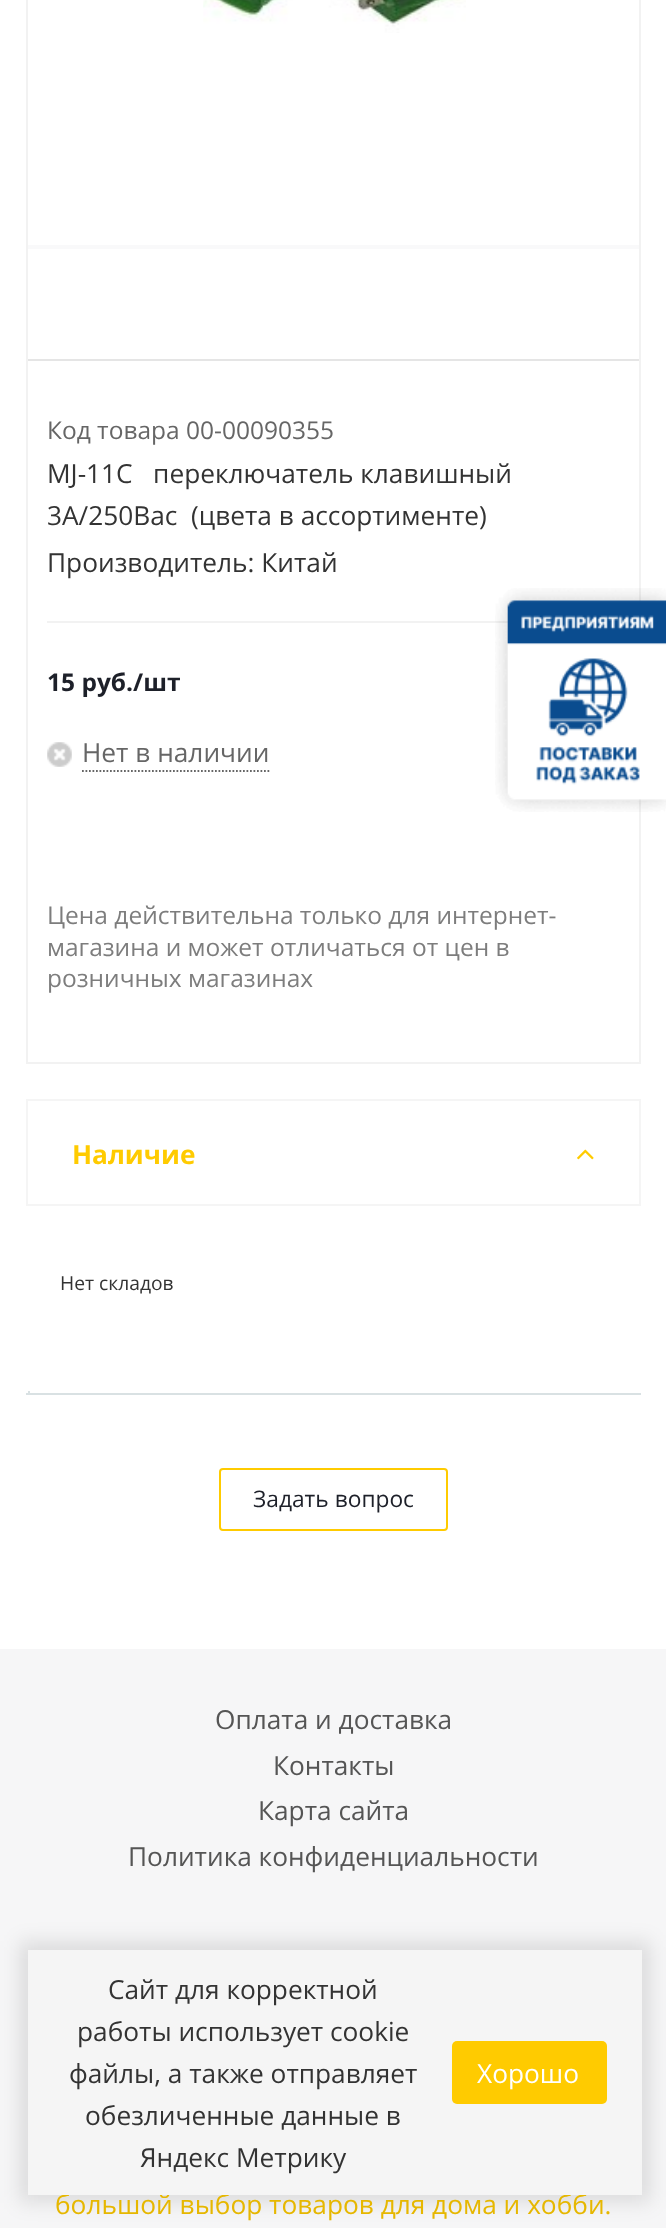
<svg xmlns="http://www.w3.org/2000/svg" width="666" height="2228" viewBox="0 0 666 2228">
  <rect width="100%" height="100%" fill="#fff"/>
  <path d="M27 -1h613v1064H27z" fill="none" stroke="#f2f2f2" stroke-width="2"/>
  <path d="M28 245h611v4H28z" fill="#f9f9fa"/>
  <image x="203" y="0" width="263" height="33" href="img/1.png"/>
  <path d="M28 359h611v2H28z" fill="#e5e5e5"/>
  <path d="M47 621h461v2H47z" fill="#f2f2f2"/>
  <image x="47" y="742" width="25" height="25" href="img/2.png"/>
  <path d="M82 771H269.5" fill="none" stroke="#666" stroke-width="1.8" stroke-dasharray="1.75 1.75"/>
  <path d="M27 1100h613v105H27z" fill="none" stroke="#f5f5f5" stroke-width="2"/>
  <image x="577" y="1149" width="17" height="11" href="img/3.png"/>
  <path d="M26 1393h615v2H26z" fill="#d9e1e3"/>
  <path d="M28 1391h2v2H28z" fill="#d9e1e3"/>
  <rect x="220" y="1469" width="227" height="61" rx="3" fill="none" stroke="#ffcb00" stroke-width="2"/>
  <image x="495" y="588" width="171" height="224" href="img/4.png"/>
  <path d="M0 1649h666v579H0z" fill="#f6f6f7"/>
  <path d="M19 1941h632v262H19z" fill="#0000001a" filter="blur(9.5px)"/>
  <text x="47" y="439" font-family="Open Sans" font-size="24.5" fill="#666">Код товара 00-00090355</text>
  <g font-family="Open Sans" font-size="26.25" fill="#333">
    <text x="47" y="483" xml:space="preserve">MJ-11C   переключатель клавишный</text>
    <text x="47" y="525" xml:space="preserve">3А/250Вac  (цвета в ассортименте)</text>
    <text x="47" y="572">Производитель: Китай</text>
  </g>
  <text x="47" y="691" font-family="Open Sans" font-size="24.5" font-weight="bold" fill="#1d2029">15 руб./шт</text>
  <text x="82" y="762" font-family="Open Sans" font-size="26.25" fill="#666">Нет в наличии</text>
  <g font-family="Open Sans" font-size="24.5" fill="#7d7d7d">
    <text x="47" y="924">Цена действительна только для интернет-</text>
    <text x="47" y="956">магазина и может отличаться от цен в</text>
    <text x="47" y="987">розничных магазинах</text>
  </g>
  <text x="72" y="1164" font-family="Open Sans" font-size="26.25" font-weight="bold" fill="#ffcb00">Наличие</text>
  <text x="60" y="1290" font-family="Open Sans" font-size="19.25" fill="#333">Нет складов</text>
  <text x="253" y="1507" font-family="Open Sans" font-size="22.75" fill="#1d2029">Задать вопрос</text>
  <g font-family="Open Sans" font-size="26.25" fill="#555">
    <text x="215" y="1729">Оплата и доставка</text>
    <text x="273" y="1775">Контакты</text>
    <text x="258" y="1820">Карта сайта</text>
    <text x="128" y="1866">Политика конфиденциальности</text>
  </g>
  <text x="55" y="2214" font-family="Open Sans" font-size="26.25" fill="#e6b700">большой выбор товаров для дома и хобби.</text>
  <path d="M28 1950h614v245H28z" fill="#f5f5f5"/>
  <g font-family="Open Sans" font-size="26.25" fill="#333">
    <text x="108" y="1999">Сайт для корректной</text>
    <text x="77" y="2041">работы использует cookie</text>
    <text x="69" y="2083">файлы, а также отправляет</text>
    <text x="85" y="2125">обезличенные данные в</text>
    <text x="140" y="2167">Яндекс Метрику</text>
  </g>
  <rect x="452" y="2041" width="155" height="63" rx="5" fill="#ffcb00"/>
  <text x="477" y="2083" font-family="Open Sans" font-size="26.25" fill="#fff">Хорошо</text>
</svg>
